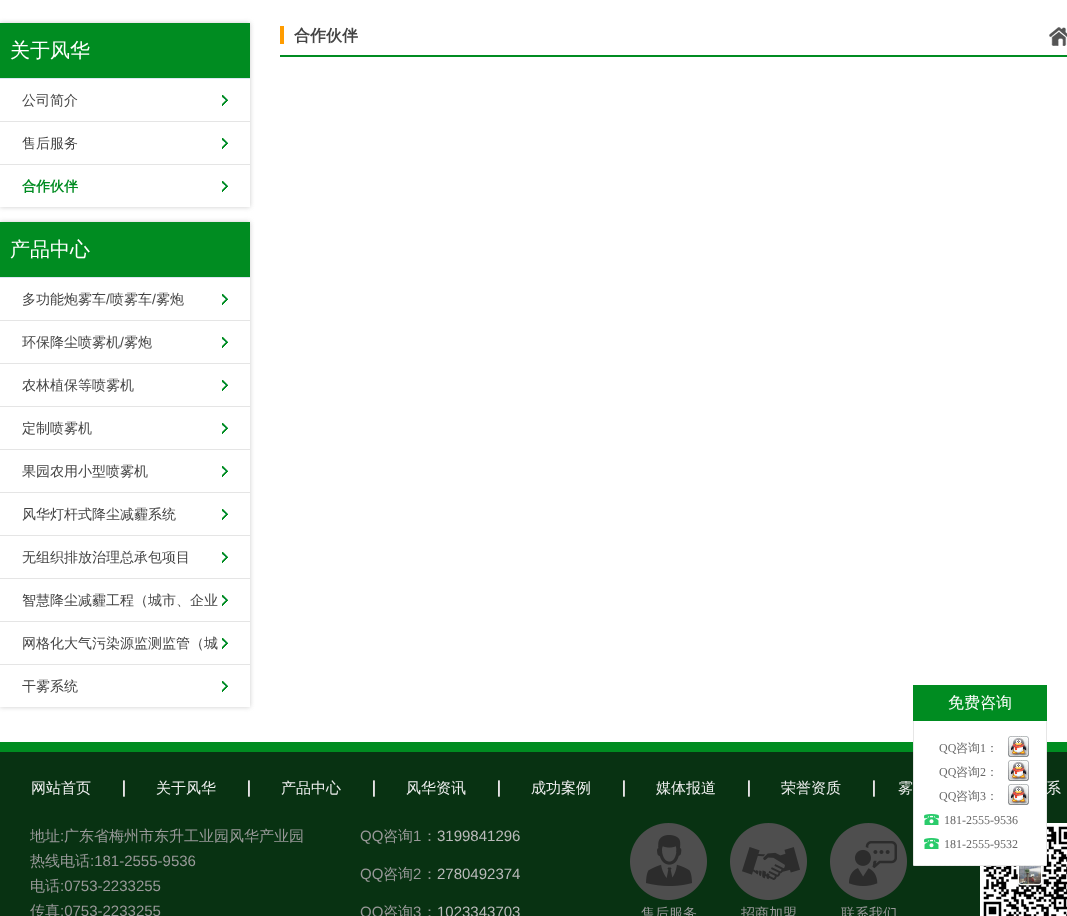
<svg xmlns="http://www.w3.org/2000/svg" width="1067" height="916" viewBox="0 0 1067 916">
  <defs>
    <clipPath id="clip1"><path d="M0 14H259V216H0ZM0 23H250V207H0Z" clip-rule="evenodd"/></clipPath>
    <clipPath id="clip2"><path d="M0 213H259V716H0ZM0 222H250V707H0Z" clip-rule="evenodd"/></clipPath>
  </defs>
  <rect width="100%" height="100%" fill="#fff"/>
  <path d="M280 55h787v2H280z" fill="#008c21"/>
  <path d="M280 26h4v18H280z" fill="#ff9c00"/>
  <image x="1049" y="27" width="18" height="19" href="img/1.png"/>
  <g clip-path="url(#clip1)">
    <path d="M0 23h250v184H0z" fill="#ccc" filter="blur(2.5px)"/>
  </g>
  <path d="M0 23h250v55H0z" fill="#008c21"/>
  <path d="M0 78h250v1H0z" fill="#dce7f3"/>
  <path d="M0 121h250v1H0z" fill="#e5e5e5"/>
  <image x="222" y="95" width="6" height="11" href="img/2.png"/>
  <path d="M0 164h250v1H0z" fill="#e5e5e5"/>
  <image x="222" y="138" width="6" height="11" href="img/2.png"/>
  <image x="222" y="181" width="6" height="11" href="img/2.png"/>
  <g clip-path="url(#clip2)">
    <path d="M0 222h250v485H0z" fill="#ccc" filter="blur(2.5px)"/>
  </g>
  <path d="M0 222h250v55H0z" fill="#008c21"/>
  <path d="M0 277h250v1H0z" fill="#dce7f3"/>
  <path d="M0 320h250v1H0z" fill="#e5e5e5"/>
  <image x="222" y="294" width="6" height="11" href="img/2.png"/>
  <path d="M0 363h250v1H0z" fill="#e5e5e5"/>
  <image x="222" y="337" width="6" height="11" href="img/2.png"/>
  <path d="M0 406h250v1H0z" fill="#e5e5e5"/>
  <image x="222" y="380" width="6" height="11" href="img/2.png"/>
  <path d="M0 449h250v1H0z" fill="#e5e5e5"/>
  <image x="222" y="423" width="6" height="11" href="img/2.png"/>
  <path d="M0 492h250v1H0z" fill="#e5e5e5"/>
  <image x="222" y="466" width="6" height="11" href="img/2.png"/>
  <path d="M0 535h250v1H0z" fill="#e5e5e5"/>
  <image x="222" y="509" width="6" height="11" href="img/2.png"/>
  <path d="M0 578h250v1H0z" fill="#e5e5e5"/>
  <image x="222" y="552" width="6" height="11" href="img/2.png"/>
  <path d="M0 621h250v1H0z" fill="#e5e5e5"/>
  <image x="222" y="595" width="6" height="11" href="img/2.png"/>
  <path d="M0 664h250v1H0z" fill="#e5e5e5"/>
  <image x="222" y="638" width="6" height="11" href="img/2.png"/>
  <image x="222" y="681" width="6" height="11" href="img/2.png"/>
  <path d="M0 752h1067v164H0z" fill="#083212"/>
  <path d="M0 742h1067v10H0z" fill="#008c21"/>
  <image x="123" y="780" width="2" height="17" href="img/5.png"/>
  <image x="248" y="780" width="2" height="17" href="img/5.png"/>
  <image x="373" y="780" width="2" height="17" href="img/5.png"/>
  <image x="498" y="780" width="2" height="17" href="img/5.png"/>
  <image x="623" y="780" width="2" height="17" href="img/5.png"/>
  <image x="748" y="780" width="2" height="17" href="img/5.png"/>
  <image x="873" y="780" width="2" height="17" href="img/5.png"/>
  <image x="630" y="823" width="77" height="77" href="img/6.png"/>
  <image x="730" y="823" width="77" height="77" href="img/7.png"/>
  <image x="830" y="823" width="77" height="77" href="img/8.png"/>
  <image x="980" y="823" width="87" height="93" href="img/9.png"/>
  <text x="294" y="41" font-family="WenQuanYi Zen Hei" font-size="16" font-weight="bold" fill="#444">合作伙伴</text>
  <text x="10" y="57" font-family="WenQuanYi Zen Hei" font-size="20" font-weight="500" fill="#fff">关于风华</text>
  <g font-family="WenQuanYi Zen Hei" font-size="14" font-weight="500" fill="#444">
    <text x="22" y="105">公司简介</text>
    <text x="22" y="148">售后服务</text>
  </g>
  <text x="22" y="191" font-family="WenQuanYi Zen Hei" font-size="14" font-weight="bold" fill="#008c21">合作伙伴</text>
  <text x="10" y="256" font-family="WenQuanYi Zen Hei" font-size="20" font-weight="500" fill="#fff">产品中心</text>
  <text x="22" y="304" font-family="WenQuanYi Zen Hei" font-size="14" font-weight="500" fill="#444">多功能炮雾车</text>
  <text x="106" y="304" font-family="Liberation Sans" font-size="14" fill="#444">/</text>
  <text x="110" y="304" font-family="WenQuanYi Zen Hei" font-size="14" font-weight="500" fill="#444">喷雾车</text>
  <text x="152" y="304" font-family="Liberation Sans" font-size="14" fill="#444">/</text>
  <g font-family="WenQuanYi Zen Hei" font-size="14" font-weight="500" fill="#444">
    <text x="156" y="304">雾炮</text>
    <text x="22" y="347">环保降尘喷雾机</text>
  </g>
  <text x="120" y="347" font-family="Liberation Sans" font-size="14" fill="#444">/</text>
  <g font-family="WenQuanYi Zen Hei" font-size="14" font-weight="500" fill="#444">
    <text x="124" y="347">雾炮</text>
    <text x="22" y="390">农林植保等喷雾机</text>
    <text x="22" y="433">定制喷雾机</text>
    <text x="22" y="476">果园农用小型喷雾机</text>
    <text x="22" y="519">风华灯杆式降尘减霾系统</text>
    <text x="22" y="562">无组织排放治理总承包项目</text>
    <text x="22" y="605">智慧降尘减霾工程（城市、企业</text>
    <text x="22" y="648">网格化大气污染源监测监管（城</text>
    <text x="22" y="691">干雾系统</text>
  </g>
  <g font-family="WenQuanYi Zen Hei" font-size="15" font-weight="500" fill="#eee">
    <text x="31" y="793">网站首页</text>
    <text x="156" y="793">关于风华</text>
    <text x="281" y="793">产品中心</text>
    <text x="406" y="793">风华资讯</text>
    <text x="531" y="793">成功案例</text>
    <text x="656" y="793">媒体报道</text>
    <text x="781" y="793">荣誉资质</text>
    <text x="898" y="793">雾</text>
    <text x="1046" y="793">系</text>
  </g>
  <path d="M914 742h132v123H914z" fill="#fff"/>
  <path d="M913.5 685.5h133v180H913.5z" fill="none" stroke="#e6e6e6"/>
  <path d="M913 685h134v36H913z" fill="#008c21"/>
  <text x="948" y="708" font-family="WenQuanYi Zen Hei" font-size="16" font-weight="500" fill="#fff">免费咨询</text>
  <text x="944" y="848" font-family="Liberation Serif" font-size="12" fill="#666">181-2555-9532</text>
  <image x="924" y="838" width="15" height="11" href="img/4.png"/>
  <text x="944" y="824" font-family="Liberation Serif" font-size="12" fill="#666">181-2555-9536</text>
  <image x="924" y="814" width="15" height="11" href="img/4.png"/>
  <image x="1008" y="784" width="21" height="21" href="img/3.png"/>
  <text x="986" y="800" font-family="WenQuanYi Zen Hei" font-size="12" font-weight="500" fill="#666">：</text>
  <text x="980" y="800" font-family="Liberation Serif" font-size="12" fill="#666">3</text>
  <text x="956" y="800" font-family="WenQuanYi Zen Hei" font-size="12" font-weight="500" fill="#666">咨询</text>
  <text x="939" y="800" font-family="Liberation Serif" font-size="12" fill="#666">QQ</text>
  <image x="1008" y="760" width="21" height="21" href="img/3.png"/>
  <text x="986" y="776" font-family="WenQuanYi Zen Hei" font-size="12" font-weight="500" fill="#666">：</text>
  <text x="980" y="776" font-family="Liberation Serif" font-size="12" fill="#666">2</text>
  <text x="956" y="776" font-family="WenQuanYi Zen Hei" font-size="12" font-weight="500" fill="#666">咨询</text>
  <text x="939" y="776" font-family="Liberation Serif" font-size="12" fill="#666">QQ</text>
  <image x="1008" y="736" width="21" height="21" href="img/3.png"/>
  <text x="986" y="752" font-family="WenQuanYi Zen Hei" font-size="12" font-weight="500" fill="#666">：</text>
  <text x="980" y="752" font-family="Liberation Serif" font-size="12" fill="#666">1</text>
  <text x="956" y="752" font-family="WenQuanYi Zen Hei" font-size="12" font-weight="500" fill="#666">咨询</text>
  <text x="939" y="752" font-family="Liberation Serif" font-size="12" fill="#666">QQ</text>
  <path d="M916 865.5H1044" fill="none" stroke="#eaeaea" stroke-dasharray="3 2"/>
  <text x="30" y="841" font-family="WenQuanYi Zen Hei" font-size="15" font-weight="500" fill="#999">地址</text>
  <text x="60" y="841" font-family="Liberation Sans" font-size="15" fill="#999">:</text>
  <g font-family="WenQuanYi Zen Hei" font-size="15" font-weight="500" fill="#999">
    <text x="64" y="841">广东省梅州市东升工业园风华产业园</text>
    <text x="30" y="866">热线电话</text>
  </g>
  <text x="90" y="866" font-family="Liberation Sans" font-size="15" fill="#999">:181-2555-9536</text>
  <text x="30" y="891" font-family="WenQuanYi Zen Hei" font-size="15" font-weight="500" fill="#999">电话</text>
  <text x="60" y="891" font-family="Liberation Sans" font-size="15" fill="#999">:0753-2233255</text>
  <text x="30" y="916" font-family="WenQuanYi Zen Hei" font-size="15" font-weight="500" fill="#999">传真</text>
  <g font-family="Liberation Sans" font-size="15" fill="#999">
    <text x="60" y="916">:0753-2233255</text>
    <text x="360" y="841">QQ</text>
  </g>
  <text x="383" y="841" font-family="WenQuanYi Zen Hei" font-size="15" font-weight="500" fill="#999">咨询</text>
  <text x="413" y="841" font-family="Liberation Sans" font-size="15" fill="#999">1</text>
  <text x="422" y="841" font-family="WenQuanYi Zen Hei" font-size="15" font-weight="500" fill="#999">：</text>
  <text x="437" y="841" font-family="Liberation Sans" font-size="15" fill="#bbb">3199841296</text>
  <text x="360" y="879" font-family="Liberation Sans" font-size="15" fill="#999">QQ</text>
  <text x="383" y="879" font-family="WenQuanYi Zen Hei" font-size="15" font-weight="500" fill="#999">咨询</text>
  <text x="413" y="879" font-family="Liberation Sans" font-size="15" fill="#999">2</text>
  <text x="422" y="879" font-family="WenQuanYi Zen Hei" font-size="15" font-weight="500" fill="#999">：</text>
  <text x="437" y="879" font-family="Liberation Sans" font-size="15" fill="#bbb">2780492374</text>
  <text x="360" y="917" font-family="Liberation Sans" font-size="15" fill="#999">QQ</text>
  <text x="383" y="917" font-family="WenQuanYi Zen Hei" font-size="15" font-weight="500" fill="#999">咨询</text>
  <text x="413" y="917" font-family="Liberation Sans" font-size="15" fill="#999">3</text>
  <text x="422" y="917" font-family="WenQuanYi Zen Hei" font-size="15" font-weight="500" fill="#999">：</text>
  <text x="437" y="917" font-family="Liberation Sans" font-size="15" fill="#bbb">1023343703</text>
  <g font-family="WenQuanYi Zen Hei" font-size="14" font-weight="500" fill="#999">
    <text x="641" y="918">售后服务</text>
    <text x="741" y="918">招商加盟</text>
    <text x="841" y="918">联系我们</text>
  </g>
</svg>
